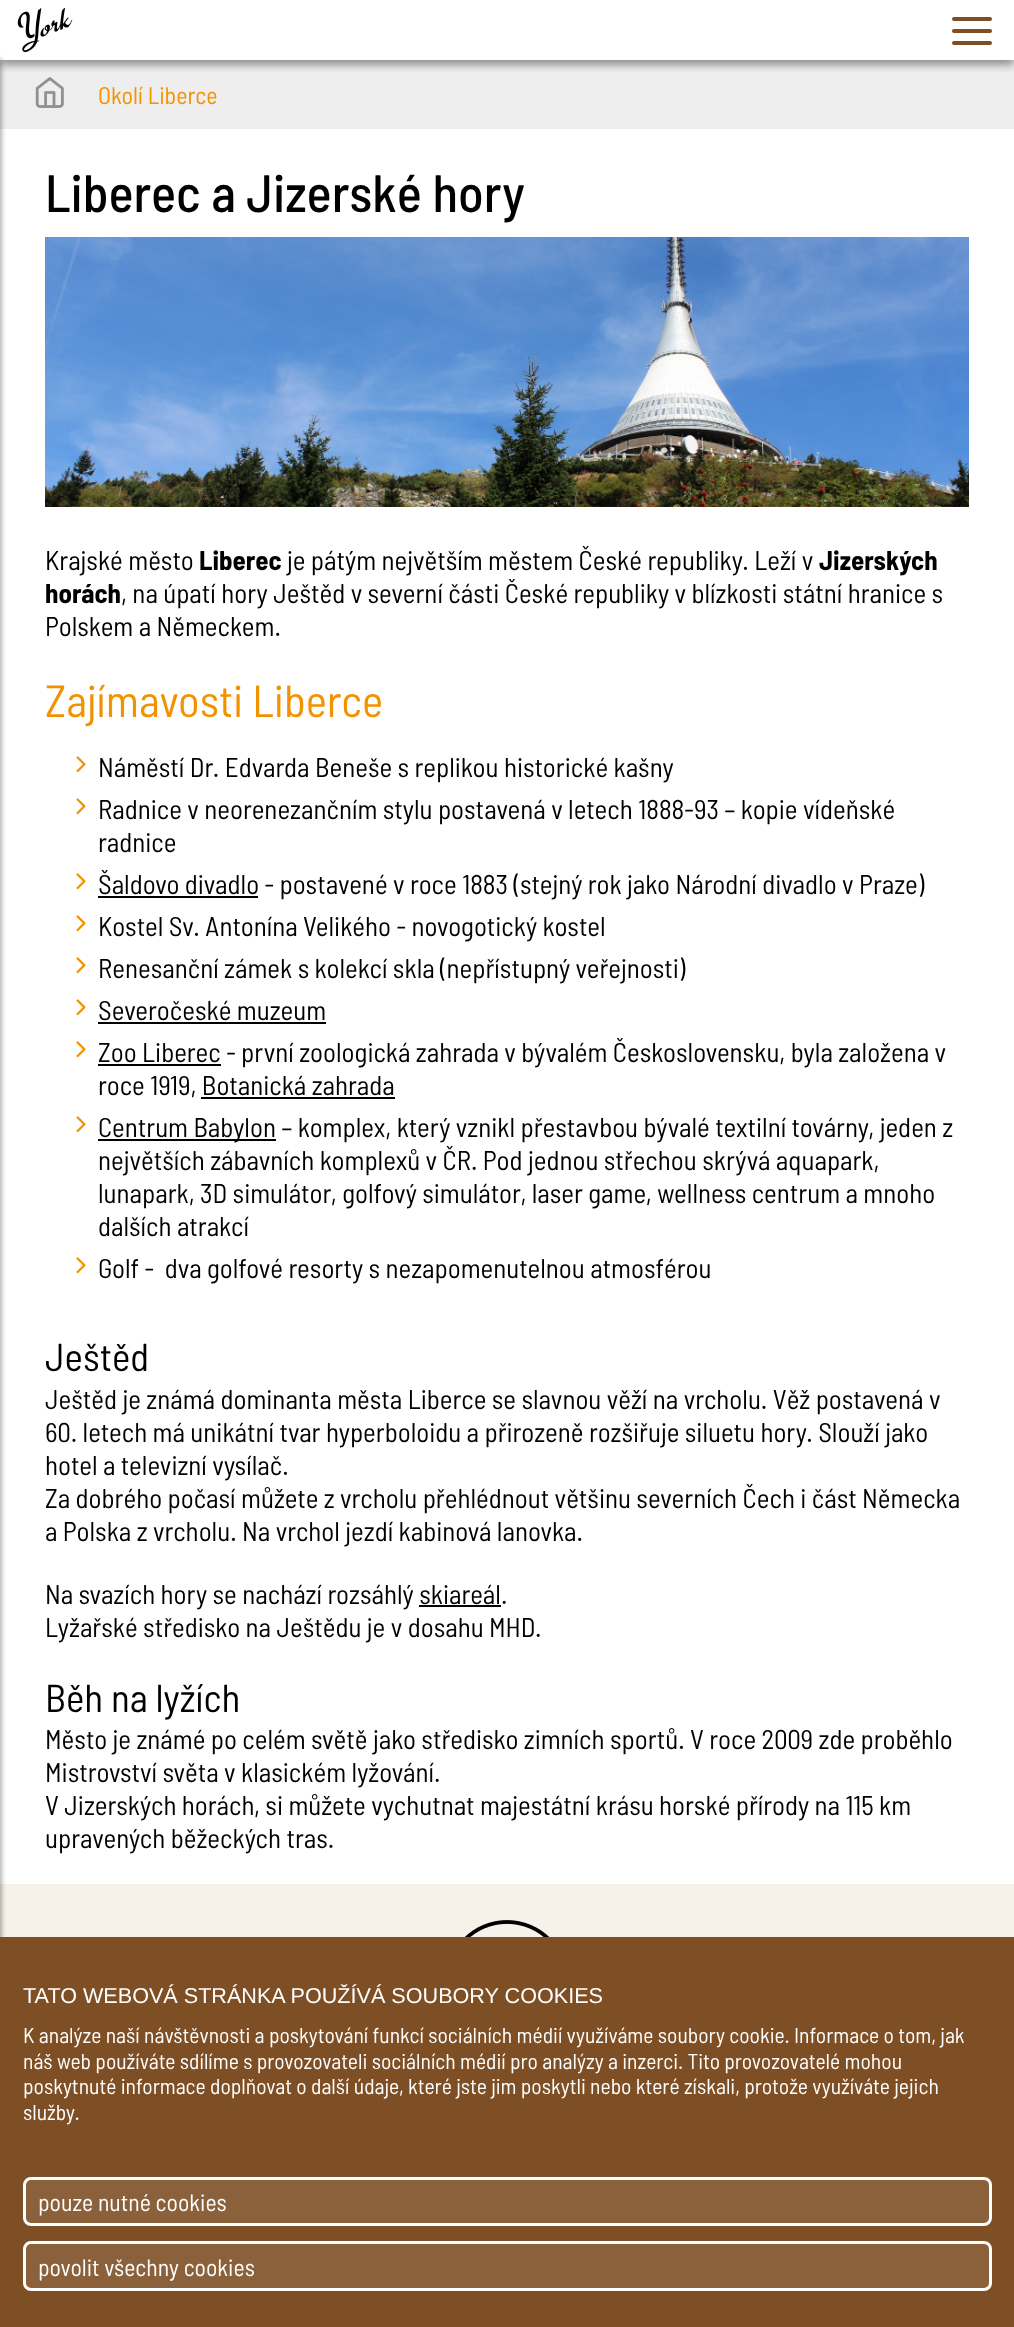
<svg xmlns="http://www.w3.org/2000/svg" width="1014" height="2327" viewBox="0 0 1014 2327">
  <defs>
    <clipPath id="clip1"><path d="M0 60h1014v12H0z"/></clipPath>
  </defs>
  <rect width="100%" height="100%" fill="#fff"/>
  <path d="M0 60h1014v69H0z" fill="#eee"/>
  <image x="35" y="77" width="29" height="31" href="img/3.png"/>
  <g clip-path="url(#clip1)">
    <path d="M0 5h1014v60H0z" fill="#00000066" filter="blur(4px)"/>
  </g>
  <image x="17" y="7" width="56" height="46" href="img/1.png"/>
  <image x="952" y="17" width="40" height="28" href="img/2.png"/>
  <path d="M0 1884h1014v53H0z" fill="#f6f1e9"/>
  <path d="M-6 59h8v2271H-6z" fill="#0000004d" filter="blur(2px)"/>
  <image x="45" y="237" width="924" height="270" href="img/4.png"/>
  <image x="76" y="756" width="10" height="17" href="img/5.png"/>
  <image x="76" y="798" width="10" height="17" href="img/5.png"/>
  <image x="76" y="873" width="10" height="17" href="img/5.png"/>
  <path d="M98 896h160v2H98z" fill="#000"/>
  <image x="76" y="915" width="10" height="17" href="img/5.png"/>
  <image x="76" y="957" width="10" height="17" href="img/5.png"/>
  <image x="76" y="999" width="10" height="17" href="img/5.png"/>
  <path d="M98 1022h228v2H98z" fill="#000"/>
  <image x="76" y="1041" width="10" height="17" href="img/5.png"/>
  <path d="M98 1064h123v2H98z" fill="#000"/>
  <path d="M201 1097h194v2H201z" fill="#000"/>
  <image x="76" y="1116" width="10" height="17" href="img/5.png"/>
  <path d="M98 1139h178v2H98z" fill="#000"/>
  <image x="76" y="1257" width="10" height="17" href="img/5.png"/>
  <path d="M419 1605h82v2H419z" fill="#000"/>
  <image x="464" y="1920" width="86" height="17" href="img/6.png"/>
  <path d="M0 1937h1014v390H0z" fill="#7e4f25"/>
  <rect x="24.5" y="2178.5" width="966" height="46" rx="6.5" fill="#8b613b" stroke="#fff" stroke-width="3"/>
  <rect x="24.5" y="2242.5" width="966" height="47" rx="6.5" fill="#8b613b" stroke="#fff" stroke-width="3"/>
  <text x="98" y="104" font-family="Barlow Semi Condensed" font-size="24" fill="#f39200">Okolí Liberce</text>
  <text x="45" y="212" font-family="Barlow Semi Condensed" font-size="52.5" font-weight="500" fill="#000">Liberec a Jizerské hory</text>
  <text x="45" y="570" font-family="Barlow Semi Condensed" font-size="27" fill="#000">Krajské město</text>
  <text x="199" y="570" font-family="Barlow Semi Condensed" font-size="27" font-weight="bold" fill="#000">Liberec</text>
  <text x="287" y="570" font-family="Barlow Semi Condensed" font-size="27" fill="#000">je pátým největším městem České republiky. Leží v</text>
  <g font-family="Barlow Semi Condensed" font-size="27" font-weight="bold" fill="#000">
    <text x="819" y="570">Jizerských</text>
    <text x="45" y="603">horách</text>
  </g>
  <g font-family="Barlow Semi Condensed" font-size="27" fill="#000">
    <text x="121" y="603">, na úpatí hory Ještěd v severní části České republiky v blízkosti státní hranice s</text>
    <text x="45" y="636">Polskem a Německem.</text>
  </g>
  <text x="45" y="717" font-family="Barlow Semi Condensed" font-size="45" fill="#f39200">Zajímavosti Liberce</text>
  <g font-family="Barlow Semi Condensed" font-size="27" fill="#000">
    <text x="98" y="777">Náměstí Dr. Edvarda Beneše s replikou historické kašny</text>
    <text x="98" y="819">Radnice v neorenezančním stylu postavená v letech 1888-93 – kopie vídeňské</text>
    <text x="98" y="852">radnice</text>
    <text x="98" y="894">Šaldovo divadlo - postavené v roce 1883 (stejný rok jako Národní divadlo v Praze)</text>
    <text x="98" y="936">Kostel Sv. Antonína Velikého - novogotický kostel</text>
    <text x="98" y="978">Renesanční zámek s kolekcí skla (nepřístupný veřejnosti)</text>
    <text x="98" y="1020">Severočeské muzeum</text>
    <text x="98" y="1062">Zoo Liberec - první zoologická zahrada v bývalém Československu, byla založena v</text>
    <text x="98" y="1095">roce 1919, Botanická zahrada</text>
    <text x="98" y="1137">Centrum Babylon – komplex, který vznikl přestavbou bývalé textilní továrny, jeden z</text>
    <text x="98" y="1170">největších zábavních komplexů v ČR. Pod jednou střechou skrývá aquapark,</text>
    <text x="98" y="1203">lunapark, 3D simulátor, golfový simulátor, laser game, wellness centrum a mnoho</text>
    <text x="98" y="1236">dalších atrakcí</text>
    <text x="98" y="1278" xml:space="preserve">Golf -  dva golfové resorty s nezapomenutelnou atmosférou</text>
  </g>
  <text x="45" y="1371" font-family="Barlow Semi Condensed" font-size="39" fill="#000">Ještěd</text>
  <g font-family="Barlow Semi Condensed" font-size="27" fill="#000">
    <text x="45" y="1409">Ještěd je známá dominanta města Liberce se slavnou věží na vrcholu. Věž postavená v</text>
    <text x="45" y="1442">60. letech má unikátní tvar hyperboloidu a přirozeně rozšiřuje siluetu hory. Slouží jako</text>
    <text x="45" y="1475">hotel a televizní vysílač.</text>
    <text x="45" y="1508">Za dobrého počasí můžete z vrcholu přehlédnout většinu severních Čech i část Německa</text>
    <text x="45" y="1541">a Polska z vrcholu. Na vrchol jezdí kabinová lanovka.</text>
    <text x="45" y="1604">Na svazích hory se nachází rozsáhlý skiareál.</text>
    <text x="45" y="1637">Lyžařské středisko na Ještědu je v dosahu MHD.</text>
  </g>
  <text x="45" y="1712" font-family="Barlow Semi Condensed" font-size="39" fill="#000">Běh na lyžích</text>
  <g font-family="Barlow Semi Condensed" font-size="27" fill="#000">
    <text x="45" y="1749">Město je známé po celém světě jako středisko zimních sportů. V roce 2009 zde proběhlo</text>
    <text x="45" y="1782">Mistrovství světa v klasickém lyžování.</text>
    <text x="45" y="1815">V Jizerských horách, si můžete vychutnat majestátní krásu horské přírody na 115 km</text>
    <text x="45" y="1848">upravených běžeckých tras.</text>
  </g>
  <text x="23" y="2003" font-family="Liberation Sans" font-size="21.6" fill="#fff">TATO WEBOVÁ STRÁNKA POUŽÍVÁ SOUBORY COOKIES</text>
  <g font-family="Barlow Semi Condensed" font-size="21.6" fill="#fff">
    <text x="23" y="2043">K analýze naší návštěvnosti a poskytování funkcí sociálních médií využíváme soubory cookie. Informace o tom, jak</text>
    <text x="23" y="2069">náš web používáte sdílíme s provozovateli sociálních médií pro analýzy a inzerci. Tito provozovatelé mohou</text>
    <text x="23" y="2094">poskytnuté informace doplňovat o další údaje, které jste jim poskytli nebo které získali, protože využíváte jejich</text>
    <text x="23" y="2120">služby.</text>
  </g>
  <g font-family="Barlow Semi Condensed" font-size="23.75" fill="#fff">
    <text x="38" y="2211">pouze nutné cookies</text>
    <text x="38" y="2276">povolit všechny cookies</text>
  </g>
</svg>
